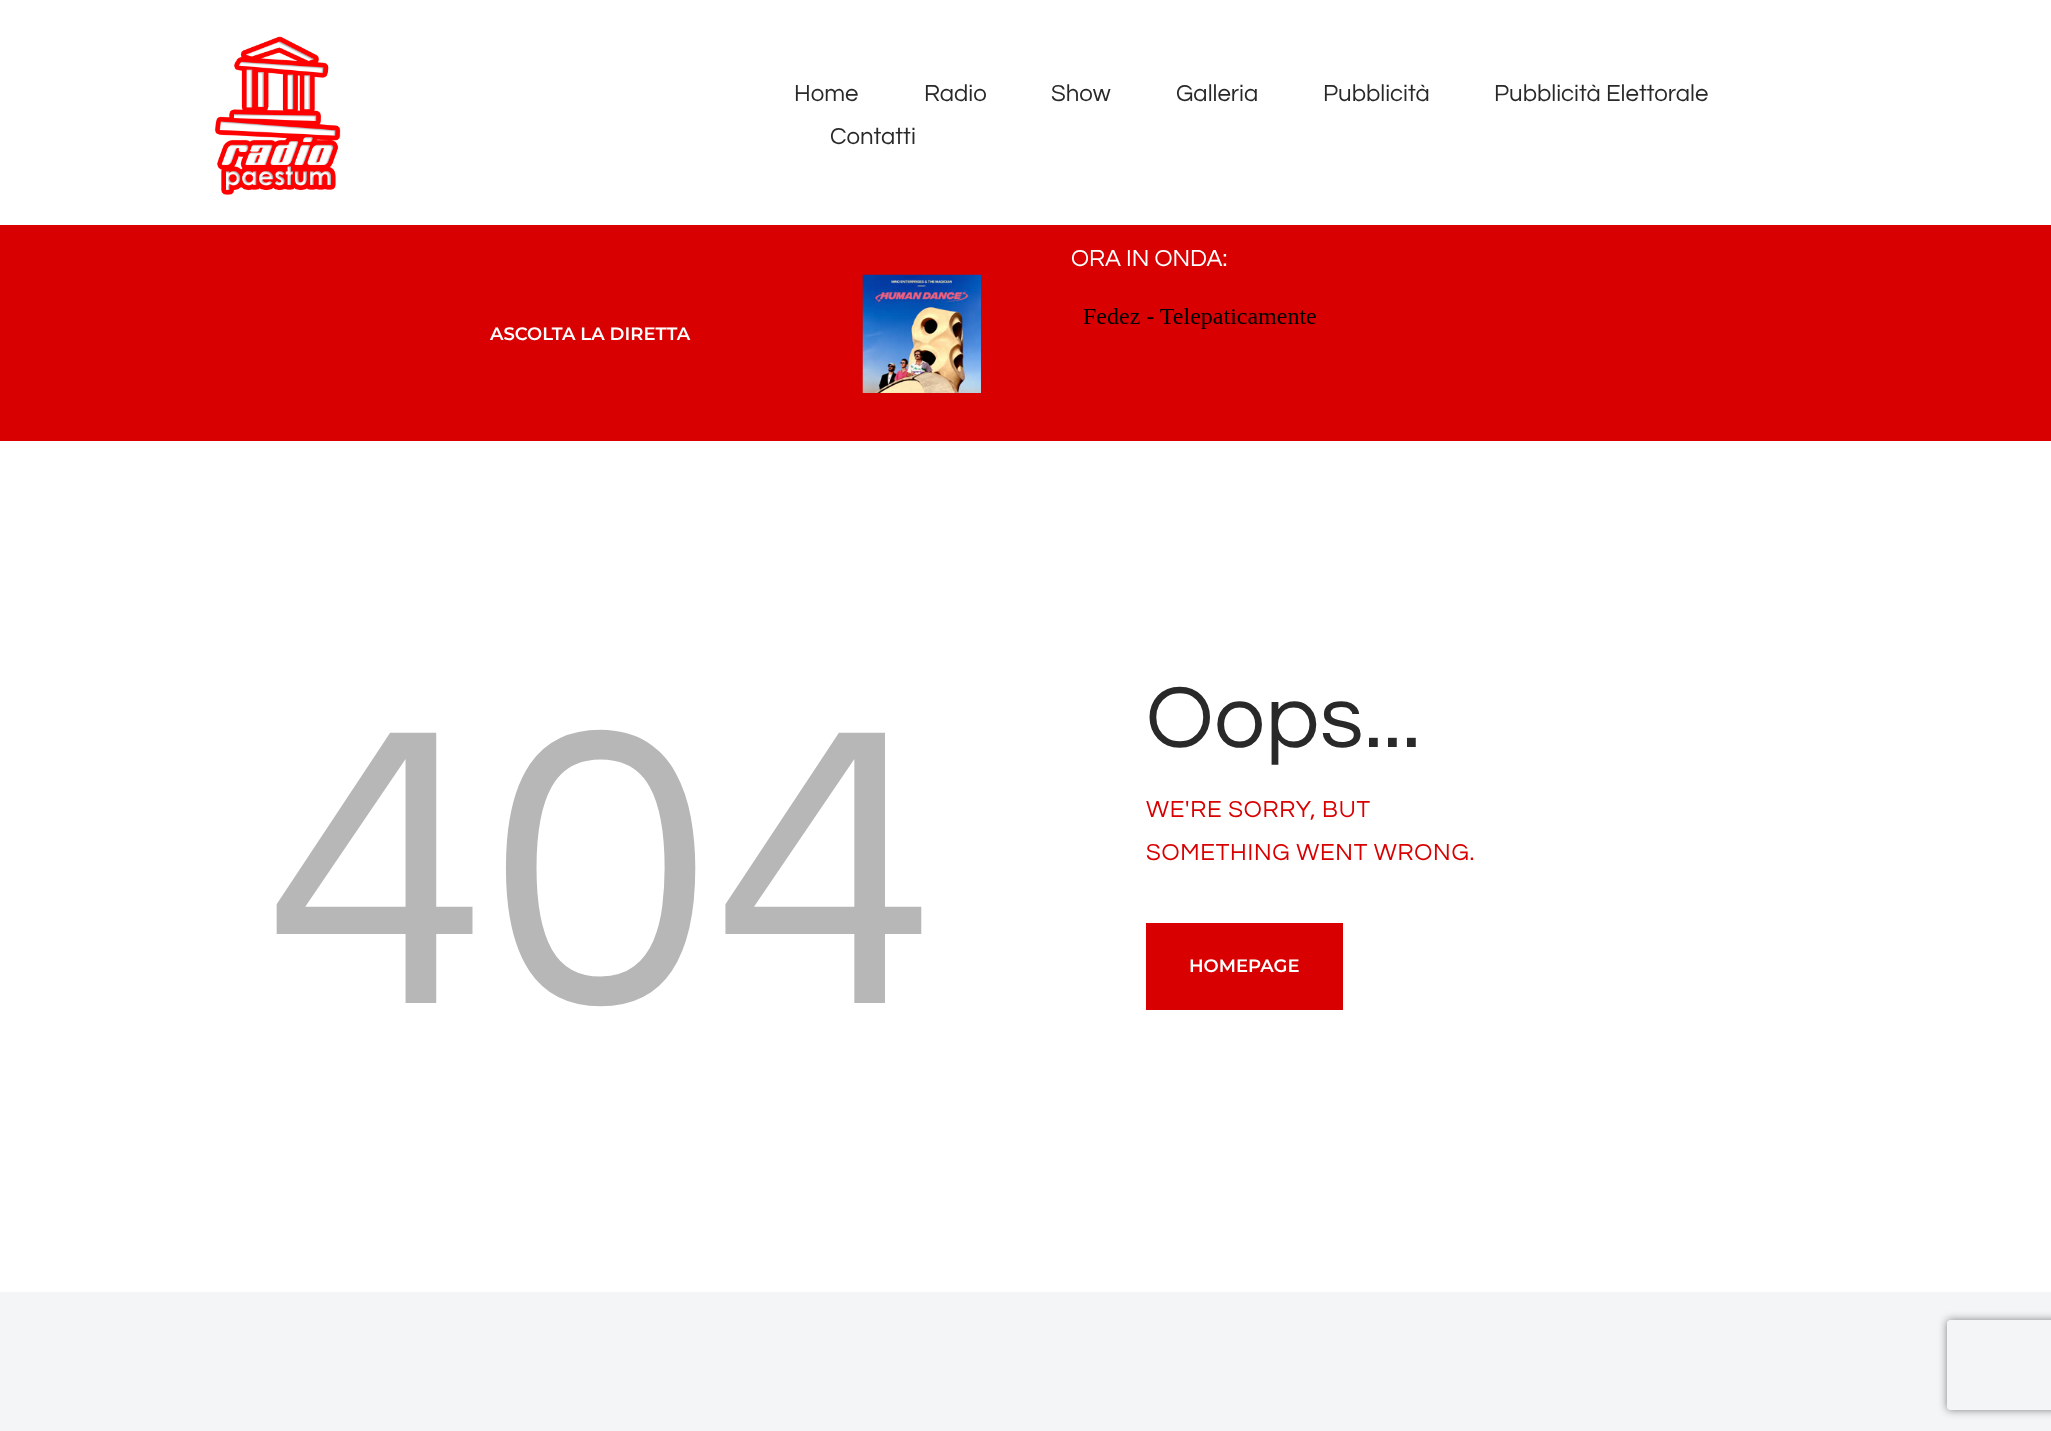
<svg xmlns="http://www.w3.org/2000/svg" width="2051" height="1431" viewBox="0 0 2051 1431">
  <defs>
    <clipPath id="clip1"><path d="M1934 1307H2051V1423H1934ZM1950 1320H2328C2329.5 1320 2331 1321.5 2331 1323V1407C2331 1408.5 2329.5 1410 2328 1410H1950C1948.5 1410 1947 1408.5 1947 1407V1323C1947 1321.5 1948.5 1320 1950 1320Z" clip-rule="evenodd"/></clipPath>
  </defs>
  <rect width="100%" height="100%" fill="#fff"/>
  <image x="214" y="36" width="127" height="159" href="img/1.png"/>
  <path d="M0 225h2051v216H0z" fill="#d80000"/>
  <image x="1083" y="308" width="233" height="21" href="img/2.png"/>
  <image x="862" y="274" width="119" height="119" href="img/3.png"/>
  <path d="M1146 923h197v87H1146z" fill="#d80000"/>
  <path d="M0 1292h2051v139H0z" fill="#f3f5f7"/>
  <g clip-path="url(#clip1)">
    <rect x="1947" y="1320" width="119" height="90" rx="3" fill="#808080" filter="blur(4px)"/>
  </g>
  <g font-family="Questrial" font-size="24" fill="#292929">
    <text x="794" y="101">Home</text>
    <text x="924" y="101">Radio</text>
    <text x="1051" y="101">Show</text>
    <text x="1176" y="101">Galleria</text>
    <text x="1323" y="101">Pubblicità</text>
    <text x="1494" y="101">Pubblicità Elettorale</text>
    <text x="830" y="144">Contatti</text>
  </g>
  <text x="1071" y="266" font-family="Questrial" font-size="24" fill="#fff">ORA IN ONDA:</text>
  <text x="490" y="340" font-family="Montserrat" font-size="18" font-weight="600" fill="#fff">ASCOLTA LA DIRETTA</text>
  <text x="264" y="1003" font-family="Questrial" font-size="408" fill="#b7b7b7">404</text>
  <text x="1146" y="747" font-family="Questrial" font-size="90" letter-spacing="0.75" fill="#292929">Oops...</text>
  <g font-family="Questrial" font-size="24" letter-spacing="0.75" fill="#d80000">
    <text x="1146" y="817">WE'RE SORRY, BUT</text>
    <text x="1146" y="860">SOMETHING WENT WRONG.</text>
  </g>
  <text x="1189" y="972" font-family="Montserrat" font-size="18" font-weight="600" fill="#fff">HOMEPAGE</text>
</svg>
